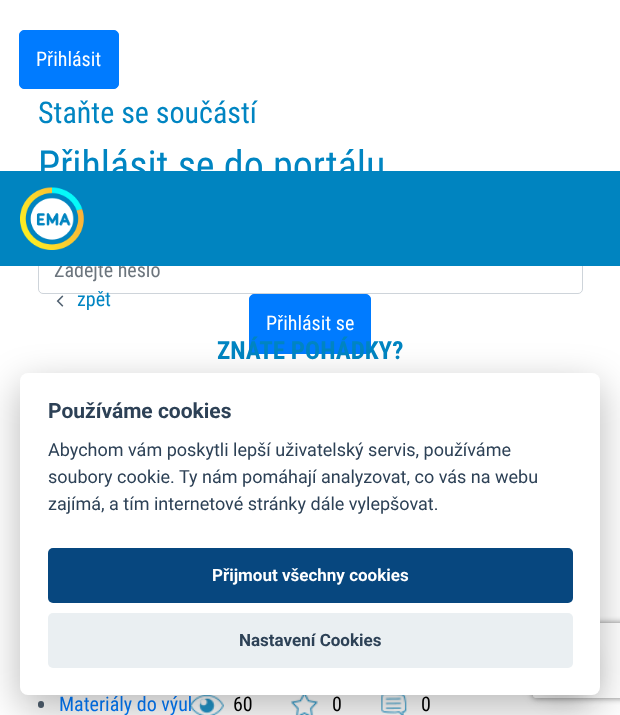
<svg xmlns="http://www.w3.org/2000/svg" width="620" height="715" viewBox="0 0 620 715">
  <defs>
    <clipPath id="clip1"><path d="M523 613H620V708H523ZM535.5 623H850.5C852 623 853 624 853 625.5V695.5C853 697 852 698 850.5 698H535.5C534 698 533 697 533 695.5V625.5C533 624 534 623 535.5 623Z" clip-rule="evenodd"/></clipPath>
  </defs>
  <rect width="100%" height="100%" fill="#fff"/>
  <rect x="19.5" y="30.5" width="99" height="58" rx="4.5" fill="#007bff" stroke="#007bff"/>
  <rect x="38.5" y="246.5" width="544" height="47" rx="4.5" fill="none" stroke="#ced4da"/>
  <rect x="249.5" y="294.5" width="121" height="59" rx="4.5" fill="#007bff" stroke="#007bff"/>
  <rect x="38" y="701" width="6" height="7" rx="3" fill="#4f5f6f"/>
  <image x="56" y="295" width="8" height="12" href="img/2.png"/>
  <image x="291" y="695" width="27" height="20" href="img/4.png"/>
  <image x="381" y="695" width="26" height="20" href="img/5.png"/>
  <rect x="533" y="640" width="62" height="63" rx="31" fill="#0000001a" filter="blur(9.5px)"/>
  <g clip-path="url(#clip1)">
    <rect x="533" y="623" width="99" height="75" rx="2.5" fill="#808080" filter="blur(3px)"/>
  </g>
  <text x="36" y="66" font-family="Roboto Condensed" font-size="20" fill="#fff">Přihlásit</text>
  <text x="38" y="123" font-family="Roboto Condensed" font-size="30" fill="#0085c2">Staňte se součástí</text>
  <text x="38" y="179" font-family="Roboto Condensed" font-size="40" fill="#0085c2">Přihlásit se do portálu</text>
  <text x="54" y="277" font-family="Roboto Condensed" font-size="20" fill="#6c757d">Zadejte heslo</text>
  <text x="266" y="330" font-family="Roboto Condensed" font-size="20" fill="#fff">Přihlásit se</text>
  <text x="59" y="711" font-family="Roboto Condensed" font-size="20" fill="#007bff">Materiály do výuk</text>
  <path d="M0 171h620v95H0z" fill="#0084c0"/>
  <image x="20" y="187" width="64" height="63" href="img/1.png"/>
  <text x="77" y="306" font-family="Roboto Condensed" font-size="20" fill="#0085c2">zpět</text>
  <text x="217" y="359" font-family="Roboto Condensed" font-size="25" font-weight="bold" fill="#0085c2">ZNÁTE POHÁDKY?</text>
  <image x="190" y="695" width="34" height="20" href="img/3.png"/>
  <g font-family="Roboto Condensed" font-size="20" fill="#000">
    <text x="233" y="711">60</text>
    <text x="332" y="711">0</text>
    <text x="421" y="711">0</text>
  </g>
  <rect x="20" y="385" width="580" height="323" rx="8" fill="#02020347" filter="blur(19px)"/>
  <rect x="20" y="373" width="580" height="322" rx="8" fill="#fff"/>
  <text x="48" y="418" font-family="Roboto" font-size="21" font-weight="bold" fill="#2d4156">Používáme cookies</text>
  <g font-family="Roboto" font-size="18" fill="#2d4156">
    <text x="48" y="456">Abychom vám poskytli lepší uživatelský servis, používáme</text>
    <text x="48" y="483">soubory cookie. Ty nám pomáhají analyzovat, co vás na webu</text>
    <text x="48" y="510">zajímá, a tím internetové stránky dále vylepšovat.</text>
  </g>
  <rect x="48" y="548" width="525" height="55" rx="5" fill="#07477f"/>
  <text x="212" y="581" font-family="Roboto" font-size="17" font-weight="bold" fill="#fff">Přijmout všechny cookies</text>
  <rect x="48" y="613" width="525" height="55" rx="5" fill="#eaeff2"/>
  <text x="239" y="646" font-family="Roboto" font-size="17" font-weight="bold" fill="#2d4156">Nastavení Cookies</text>
</svg>
